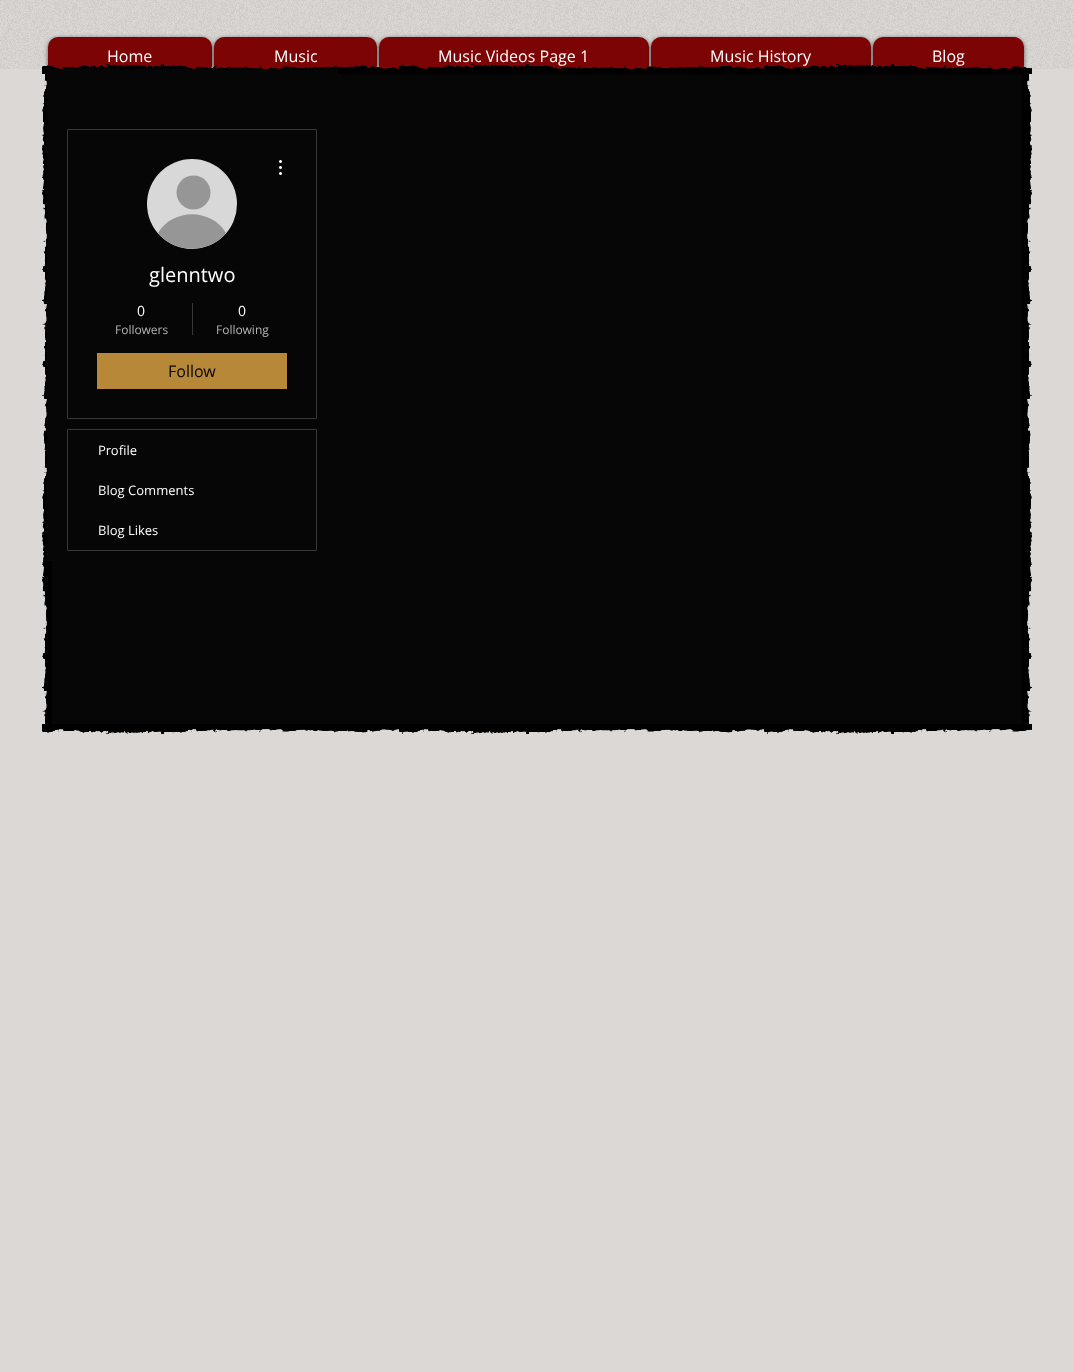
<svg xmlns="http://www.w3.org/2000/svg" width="1074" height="1372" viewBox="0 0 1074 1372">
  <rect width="100%" height="100%" fill="#dbd8d5"/>
  <image x="0" y="0" width="1074" height="69" href="img/1.png"/>
  <rect x="48" y="38" width="164" height="38" rx="10" fill="#00000099" filter="blur(2px)"/>
  <rect x="48" y="37" width="164" height="38" rx="10" fill="#7c0404"/>
  <rect x="214" y="38" width="163" height="38" rx="10" fill="#00000099" filter="blur(2px)"/>
  <rect x="214" y="37" width="163" height="38" rx="10" fill="#7c0404"/>
  <rect x="379" y="38" width="270" height="38" rx="10" fill="#00000099" filter="blur(2px)"/>
  <rect x="379" y="37" width="270" height="38" rx="10" fill="#7c0404"/>
  <rect x="651" y="38" width="220" height="38" rx="10" fill="#00000099" filter="blur(2px)"/>
  <rect x="651" y="37" width="220" height="38" rx="10" fill="#7c0404"/>
  <rect x="873" y="38" width="151" height="38" rx="10" fill="#00000099" filter="blur(2px)"/>
  <rect x="873" y="37" width="151" height="38" rx="10" fill="#7c0404"/>
  <path d="M52 74h970v650H52z" fill="#070606"/>
  <image x="42" y="724" width="990" height="10" href="img/3.png"/>
  <image x="42" y="74" width="10" height="650" href="img/4.png"/>
  <image x="1022" y="74" width="10" height="650" href="img/5.png"/>
  <g font-family="Open Sans" font-size="16" fill="#fff">
    <text x="107" y="62">Home</text>
    <text x="274" y="62">Music</text>
    <text x="438" y="62">Music Videos Page 1</text>
    <text x="710" y="62">Music History</text>
    <text x="932" y="62">Blog</text>
  </g>
  <image x="42" y="64" width="990" height="10" href="img/2.png"/>
  <path d="M47 69h291v492H47z" fill="#070606"/>
  <path d="M67.5 129.5h249v289H67.5z" fill="none" stroke="#393838"/>
  <circle cx="192" cy="204" r="45" fill="#d8d8d8"/>
  <circle cx="193.5" cy="192.5" r="17" fill="#969696"/>
  <path d="M226 233C208 254 176 254 158 233C173 208 211 208 226 233Z" fill="#969696"/>
  <image x="279" y="160" width="3" height="15" href="img/6.png"/>
  <text x="149" y="282" font-family="Open Sans" font-size="20" fill="#fff">glenntwo</text>
  <text x="137" y="316" font-family="Open Sans" font-size="14" fill="#fff">0</text>
  <text x="115" y="334" font-family="Open Sans" font-size="12" fill="#b5b4b4">Followers</text>
  <path d="M192 303h1v32H192z" fill="#393838"/>
  <text x="238" y="316" font-family="Open Sans" font-size="14" fill="#fff">0</text>
  <text x="216" y="334" font-family="Open Sans" font-size="12" fill="#b5b4b4">Following</text>
  <path d="M97 353h190v36H97z" fill="#b78837"/>
  <text x="168" y="377" font-family="Open Sans" font-size="16" fill="#070606">Follow</text>
  <path d="M67.5 429.5h249v121H67.5z" fill="none" stroke="#393838"/>
  <g font-family="Open Sans" font-size="13" fill="#fff">
    <text x="98" y="455">Profile</text>
    <text x="98" y="495">Blog Comments</text>
    <text x="98" y="535">Blog Likes</text>
  </g>
</svg>
